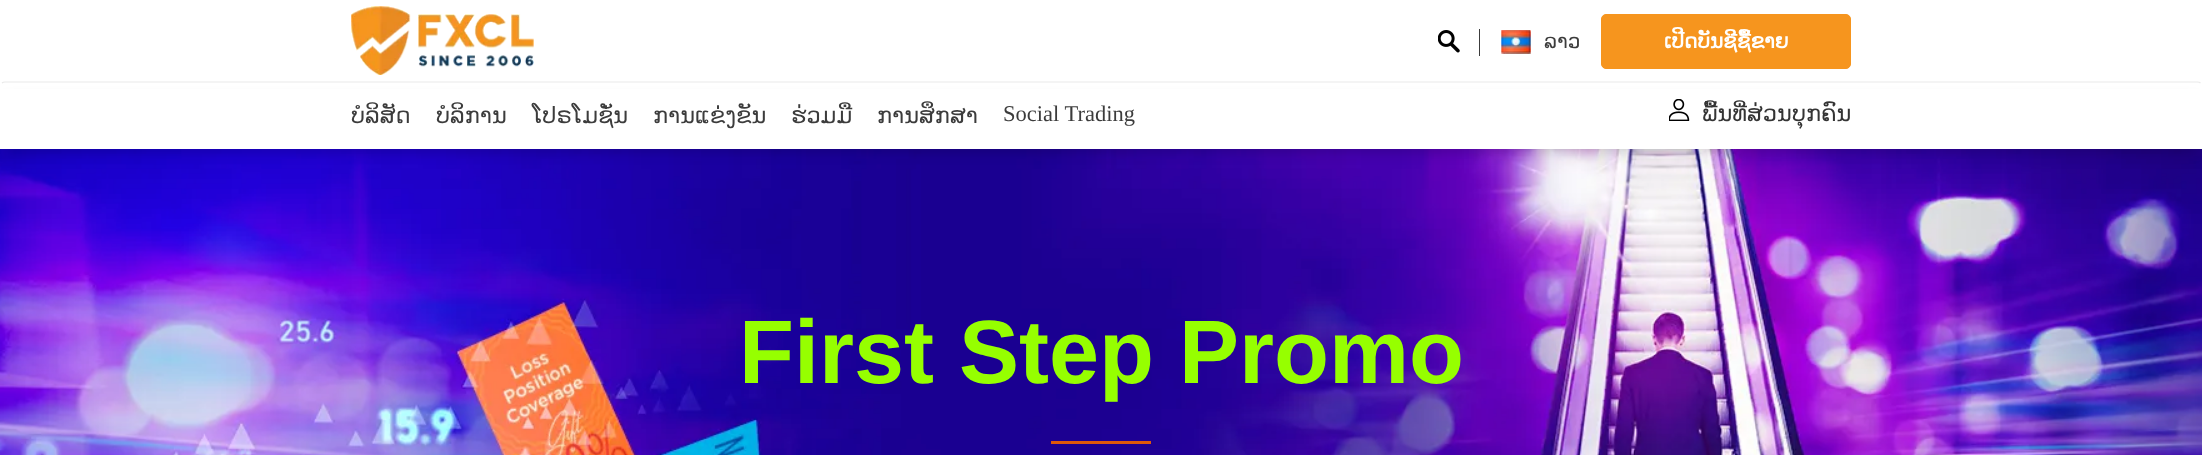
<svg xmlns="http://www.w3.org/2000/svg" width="2202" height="455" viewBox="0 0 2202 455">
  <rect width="100%" height="100%" fill="#fff"/>
  <image x="351" y="6" width="183" height="69" href="img/1.png"/>
  <path d="M1479 29h1v27H1479z" fill="#3c3c3c"/>
  <image x="1438" y="30" width="22" height="23" href="img/2.png"/>
  <image x="1501" y="30" width="30" height="24" href="img/3.png"/>
  <rect x="1601.5" y="14.5" width="249" height="54" rx="4.5" fill="#f6951e" stroke="#f6951e"/>
  <image x="0" y="149" width="2202" height="306" href="img/5.png"/>
  <path d="M6 98h2190v55H6z" fill="#00000026" filter="blur(6px)"/>
  <path d="M0 89h2202v60H0z" fill="#fff"/>
  <path d="M2 83C2.5 82.5 4 82 5 82H2197.5C2198.5 82 2200 82.5 2200.5 83" fill="none" stroke="#e9e9e9" stroke-width="1.2"/>
  <image x="1669" y="99" width="21" height="22" href="img/4.png"/>
  <path d="M1051 441h100v3H1051z" fill="#df580a"/>
  <text x="1544" y="48" font-family="DejaVu Sans" font-size="20" fill="#3c3c3c">ລາວ</text>
  <text x="1664" y="48" font-family="DejaVu Sans" font-size="20" font-weight="bold" fill="#fff">ເປີດບັນຊີຊື້ຂາຍ</text>
  <g font-family="DejaVu Sans" font-size="22.5" fill="#3c3c3c">
    <text x="351" y="123">ບໍລິສັດ</text>
    <text x="436" y="123">ບໍລິການ</text>
    <text x="532" y="123">ໂປຣໂມຊັ່ນ</text>
    <text x="653" y="123">ການແຂ່ງຂັນ</text>
    <text x="791" y="123">ຮ່ວມມື</text>
    <text x="877" y="123">ການສຶກສາ</text>
  </g>
  <text x="1003" y="121" font-family="Liberation Serif" font-size="22.5" fill="#3c3c3c">Social Trading</text>
  <text x="1702" y="121" font-family="DejaVu Sans" font-size="22.5" fill="#343434">ພື້້ນທີ່ສ່ວນບຸກຄົນ</text>
  <text x="739" y="383" font-family="Liberation Sans" font-size="90" font-weight="bold" fill="#96ff00">First Step Promo</text>
</svg>
